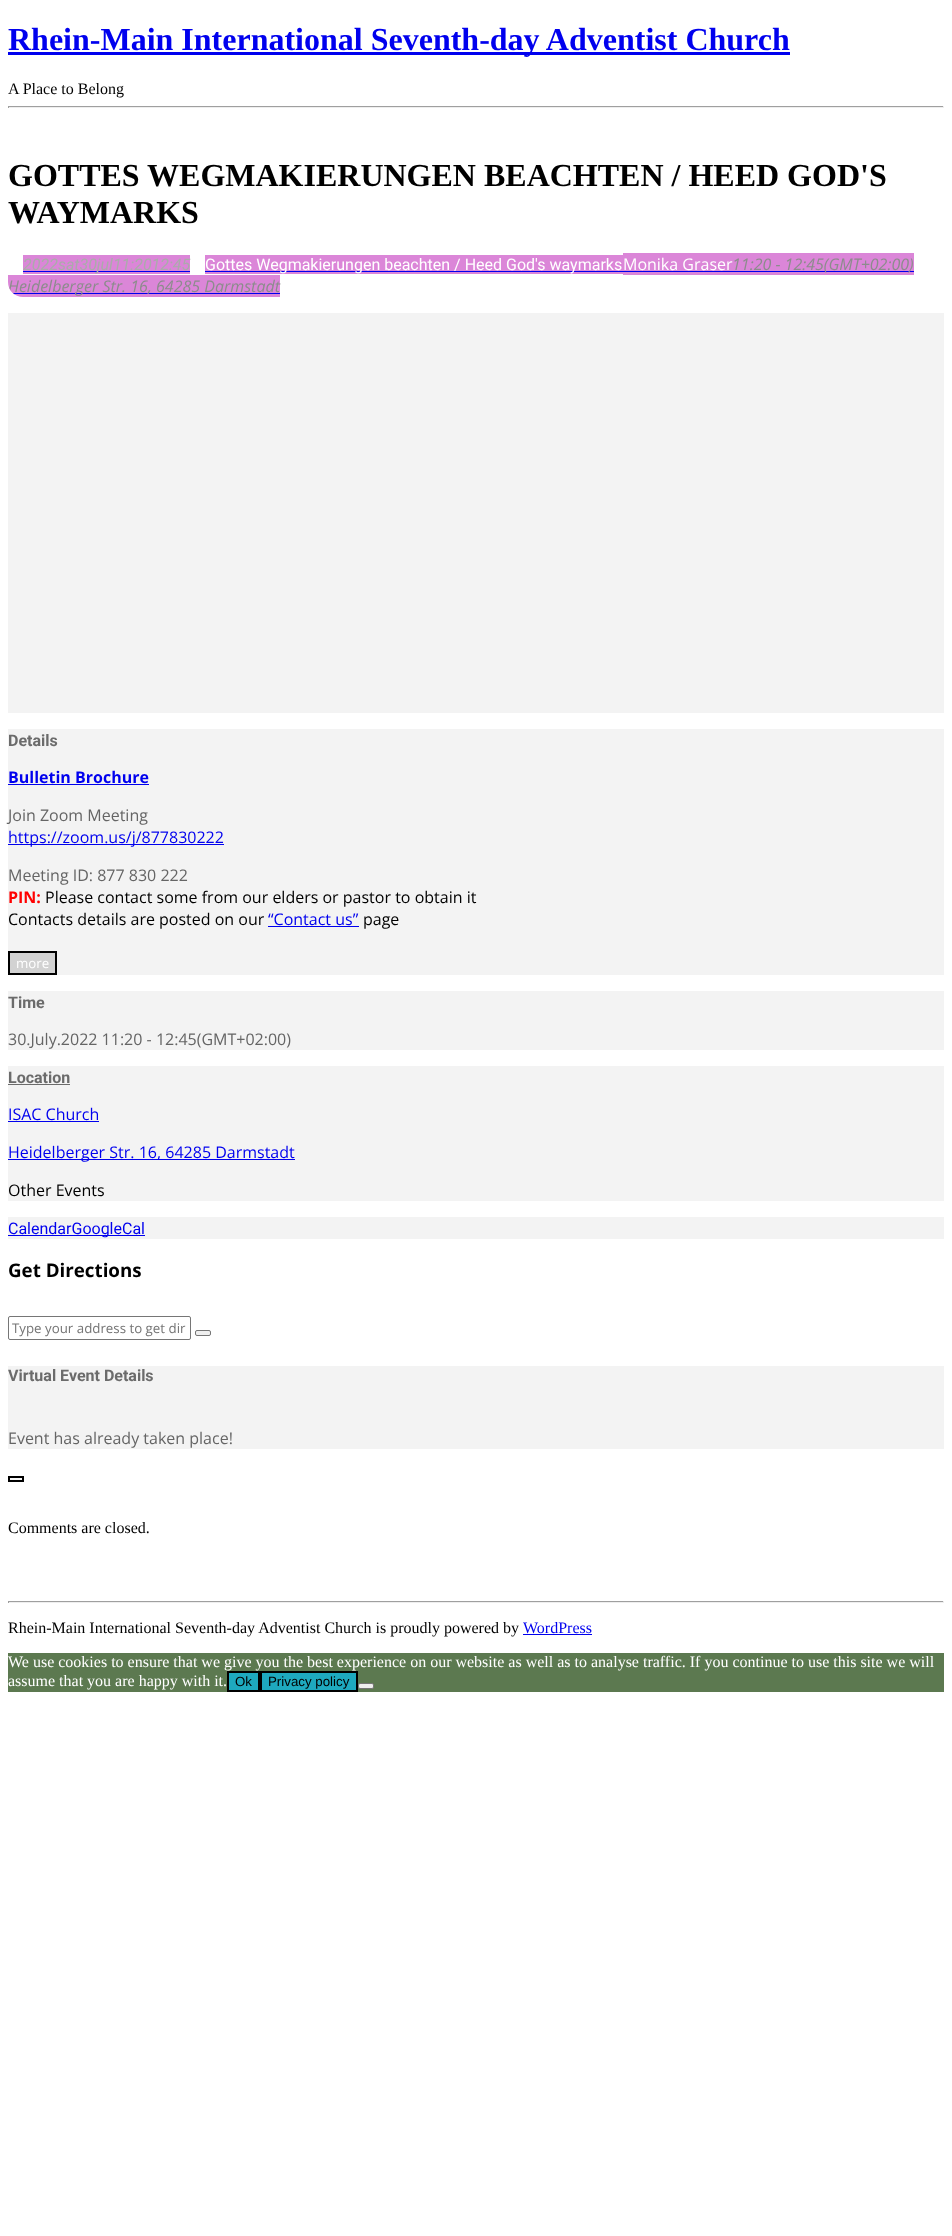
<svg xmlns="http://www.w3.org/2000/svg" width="952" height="2236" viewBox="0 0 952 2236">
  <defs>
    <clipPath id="clip1"><rect x="8" y="253" width="936" height="44" rx="15"/></clipPath>
  </defs>
  <rect width="100%" height="100%" fill="#fff"/>
  <path d="M8 52h782v3H8z" fill="#00e"/>
  <path d="M8 106h936v1H8z" fill="#9f9f9f"/>
  <path d="M943 106h1v2H943z" fill="#eee"/>
  <path d="M8 107h936v1H8z" fill="#eee"/>
  <path d="M8 106h1v2H8z" fill="#9f9f9f"/>
  <path d="M23 255h167v19H23z" fill="#db86d8"/>
  <path d="M23 271h167v1H23z" fill="#00e"/>
  <path d="M205 255h418v19H205z" fill="#db86d8"/>
  <path d="M623 253h291v22H623z" fill="#db86d8"/>
  <path d="M205 271h709v1H205z" fill="#00e"/>
  <path d="M8 275H280V297H23C14.5 297 8 290.5 8 282Z" fill="#db86d8"/>
  <g clip-path="url(#clip1)">
    <path d="M8 293h272v1H8z" fill="#00e"/>
  </g>
  <path d="M8 313h936v400H8z" fill="#f3f3f3"/>
  <path d="M8 729h936v246H8z" fill="#f3f3f3"/>
  <path d="M8 784h141v1H8z" fill="#00e"/>
  <path d="M8 844h216v1H8z" fill="#00e"/>
  <path d="M268 926h91v1H268z" fill="#00e"/>
  <path d="M9 952h47v22H9z" fill="#d2d2d2" stroke="#000" stroke-width="2"/>
  <path d="M8 991h936v59H8z" fill="#f3f3f3"/>
  <path d="M8 1066h936v135H8z" fill="#f3f3f3"/>
  <path d="M8 1084h62v1H8z" fill="#6b6b6b"/>
  <path d="M8 1121h91v1H8z" fill="#00e"/>
  <path d="M8 1159h287v1H8z" fill="#00e"/>
  <path d="M8 1217h936v22H8z" fill="#f3f3f3"/>
  <path d="M8 1235h137v1H8z" fill="#00e"/>
  <rect x="8.5" y="1316.5" width="182" height="23" rx="1.5" fill="none" stroke="#767676"/>
  <rect x="195.5" y="1330.5" width="15" height="5" rx="1.5" fill="#efefef" stroke="#767676"/>
  <path d="M8 1366h936v83H8z" fill="#f3f3f3"/>
  <path d="M9 1477h14v4H9z" fill="#f7f7f7" stroke="#000" stroke-width="2"/>
  <path d="M8 1601h936v1H8z" fill="#9f9f9f"/>
  <path d="M943 1601h1v2H943z" fill="#eee"/>
  <path d="M8 1602h936v1H8z" fill="#eee"/>
  <path d="M8 1601h1v2H8z" fill="#9f9f9f"/>
  <path d="M523 1634h69v1H523z" fill="#00e"/>
  <path d="M8 1653h936v39H8z" fill="#5c7950"/>
  <path d="M228 1672h31v19H228z" fill="#1ea9bf" stroke="#000" stroke-width="2"/>
  <path d="M261 1672h96v19H261z" fill="#1ea9bf" stroke="#000" stroke-width="2"/>
  <rect x="358.5" y="1683.5" width="15" height="5" rx="1.5" fill="#efefef" stroke="#767676"/>
  <text x="8" y="50" font-family="Liberation Serif" font-size="32" font-weight="bold" fill="#00e">Rhein-Main International Seventh-day Adventist Church</text>
  <text x="8" y="94" font-family="Liberation Serif" font-size="16" fill="#000">A Place to Belong</text>
  <g font-family="Liberation Serif" font-size="32" font-weight="bold" fill="#000">
    <text x="8" y="186">GOTTES WEGMAKIERUNGEN BEACHTEN / HEED GOD'S</text>
    <text x="8" y="223">WAYMARKS</text>
  </g>
  <text x="23" y="270" font-family="Roboto" font-size="16" font-style="italic" fill="#ababab">2022sat30jul11:2012:45</text>
  <text x="205" y="270" font-family="Roboto" font-size="16" fill="#fff">Gottes Wegmakierungen beachten / Heed God's waymarks</text>
  <text x="623" y="270" font-family="Open Sans" font-size="16" fill="#fff">Monika Graser</text>
  <text x="732" y="270" font-family="Open Sans" font-size="16" font-style="italic" fill="#8c8c8c">11:20 - 12:45(GMT+02:00)</text>
  <g clip-path="url(#clip1)">
    <text x="8" y="292" font-family="Open Sans" font-size="16" font-style="italic" fill="#8c8c8c">Heidelberger Str. 16, 64285 Darmstadt</text>
  </g>
  <text x="8" y="746" font-family="Roboto" font-size="16" font-weight="bold" fill="#6b6b6b">Details</text>
  <text x="8" y="783" font-family="Open Sans" font-size="16" font-weight="bold" fill="#00e">Bulletin Brochure</text>
  <text x="8" y="821" font-family="Open Sans" font-size="16" fill="#656565">Join Zoom Meeting</text>
  <text x="8" y="843" font-family="Open Sans" font-size="16" fill="#00e">https://zoom.us/j/877830222</text>
  <text x="8" y="881" font-family="Open Sans" font-size="16" fill="#656565">Meeting ID: 877 830 222</text>
  <text x="8" y="903" font-family="Open Sans" font-size="16" font-weight="bold" fill="#f00">PIN:</text>
  <g font-family="Open Sans" font-size="16" fill="#000">
    <text x="45" y="903">Please contact some from our elders or pastor to obtain it</text>
    <text x="8" y="925">Contacts details are posted on our</text>
  </g>
  <text x="268" y="925" font-family="Open Sans" font-size="16" fill="#00e">“Contact us”</text>
  <text x="363" y="925" font-family="Open Sans" font-size="16" fill="#000">page</text>
  <text x="16" y="968" font-family="Open Sans" font-size="13.3" fill="#fff">more</text>
  <text x="8" y="1008" font-family="Roboto" font-size="16" font-weight="bold" fill="#6b6b6b">Time</text>
  <text x="8" y="1045" font-family="Open Sans" font-size="16" fill="#656565">30.July.2022 11:20 - 12:45(GMT+02:00)</text>
  <text x="8" y="1083" font-family="Roboto" font-size="16" font-weight="bold" fill="#6b6b6b">Location</text>
  <g font-family="Open Sans" font-size="16" fill="#00e">
    <text x="8" y="1120">ISAC Church</text>
    <text x="8" y="1158">Heidelberger Str. 16, 64285 Darmstadt</text>
  </g>
  <text x="8" y="1196" font-family="Open Sans" font-size="16" fill="#000">Other Events</text>
  <text x="8" y="1234" font-family="Roboto" font-size="16" fill="#00e">CalendarGoogleCal</text>
  <text x="8" y="1277" font-family="Open Sans" font-size="18.75" font-weight="bold" fill="#000">Get Directions</text>
  <text x="12" y="1333" font-family="Open Sans" font-size="13.3" fill="#757575">Type your address to get dir</text>
  <text x="8" y="1381" font-family="Roboto" font-size="16" font-weight="bold" fill="#6b6b6b">Virtual Event Details</text>
  <text x="8" y="1444" font-family="Open Sans" font-size="16" fill="#656565">Event has already taken place!</text>
  <g font-family="Liberation Serif" font-size="16" fill="#000">
    <text x="8" y="1533">Comments are closed.</text>
    <text x="8" y="1633">Rhein-Main International Seventh-day Adventist Church is proudly powered by</text>
  </g>
  <text x="523" y="1633" font-family="Liberation Serif" font-size="16" fill="#00e">WordPress</text>
  <g font-family="Liberation Serif" font-size="16" fill="#fff">
    <text x="8" y="1667">We use cookies to ensure that we give you the best experience on our website as well as to analyse traffic. If you continue to use this site we will</text>
    <text x="8" y="1686">assume that you are happy with it.</text>
  </g>
  <g font-family="Liberation Sans" font-size="13.3" fill="#000">
    <text x="235" y="1686">Ok</text>
    <text x="268" y="1686">Privacy policy</text>
  </g>
</svg>
